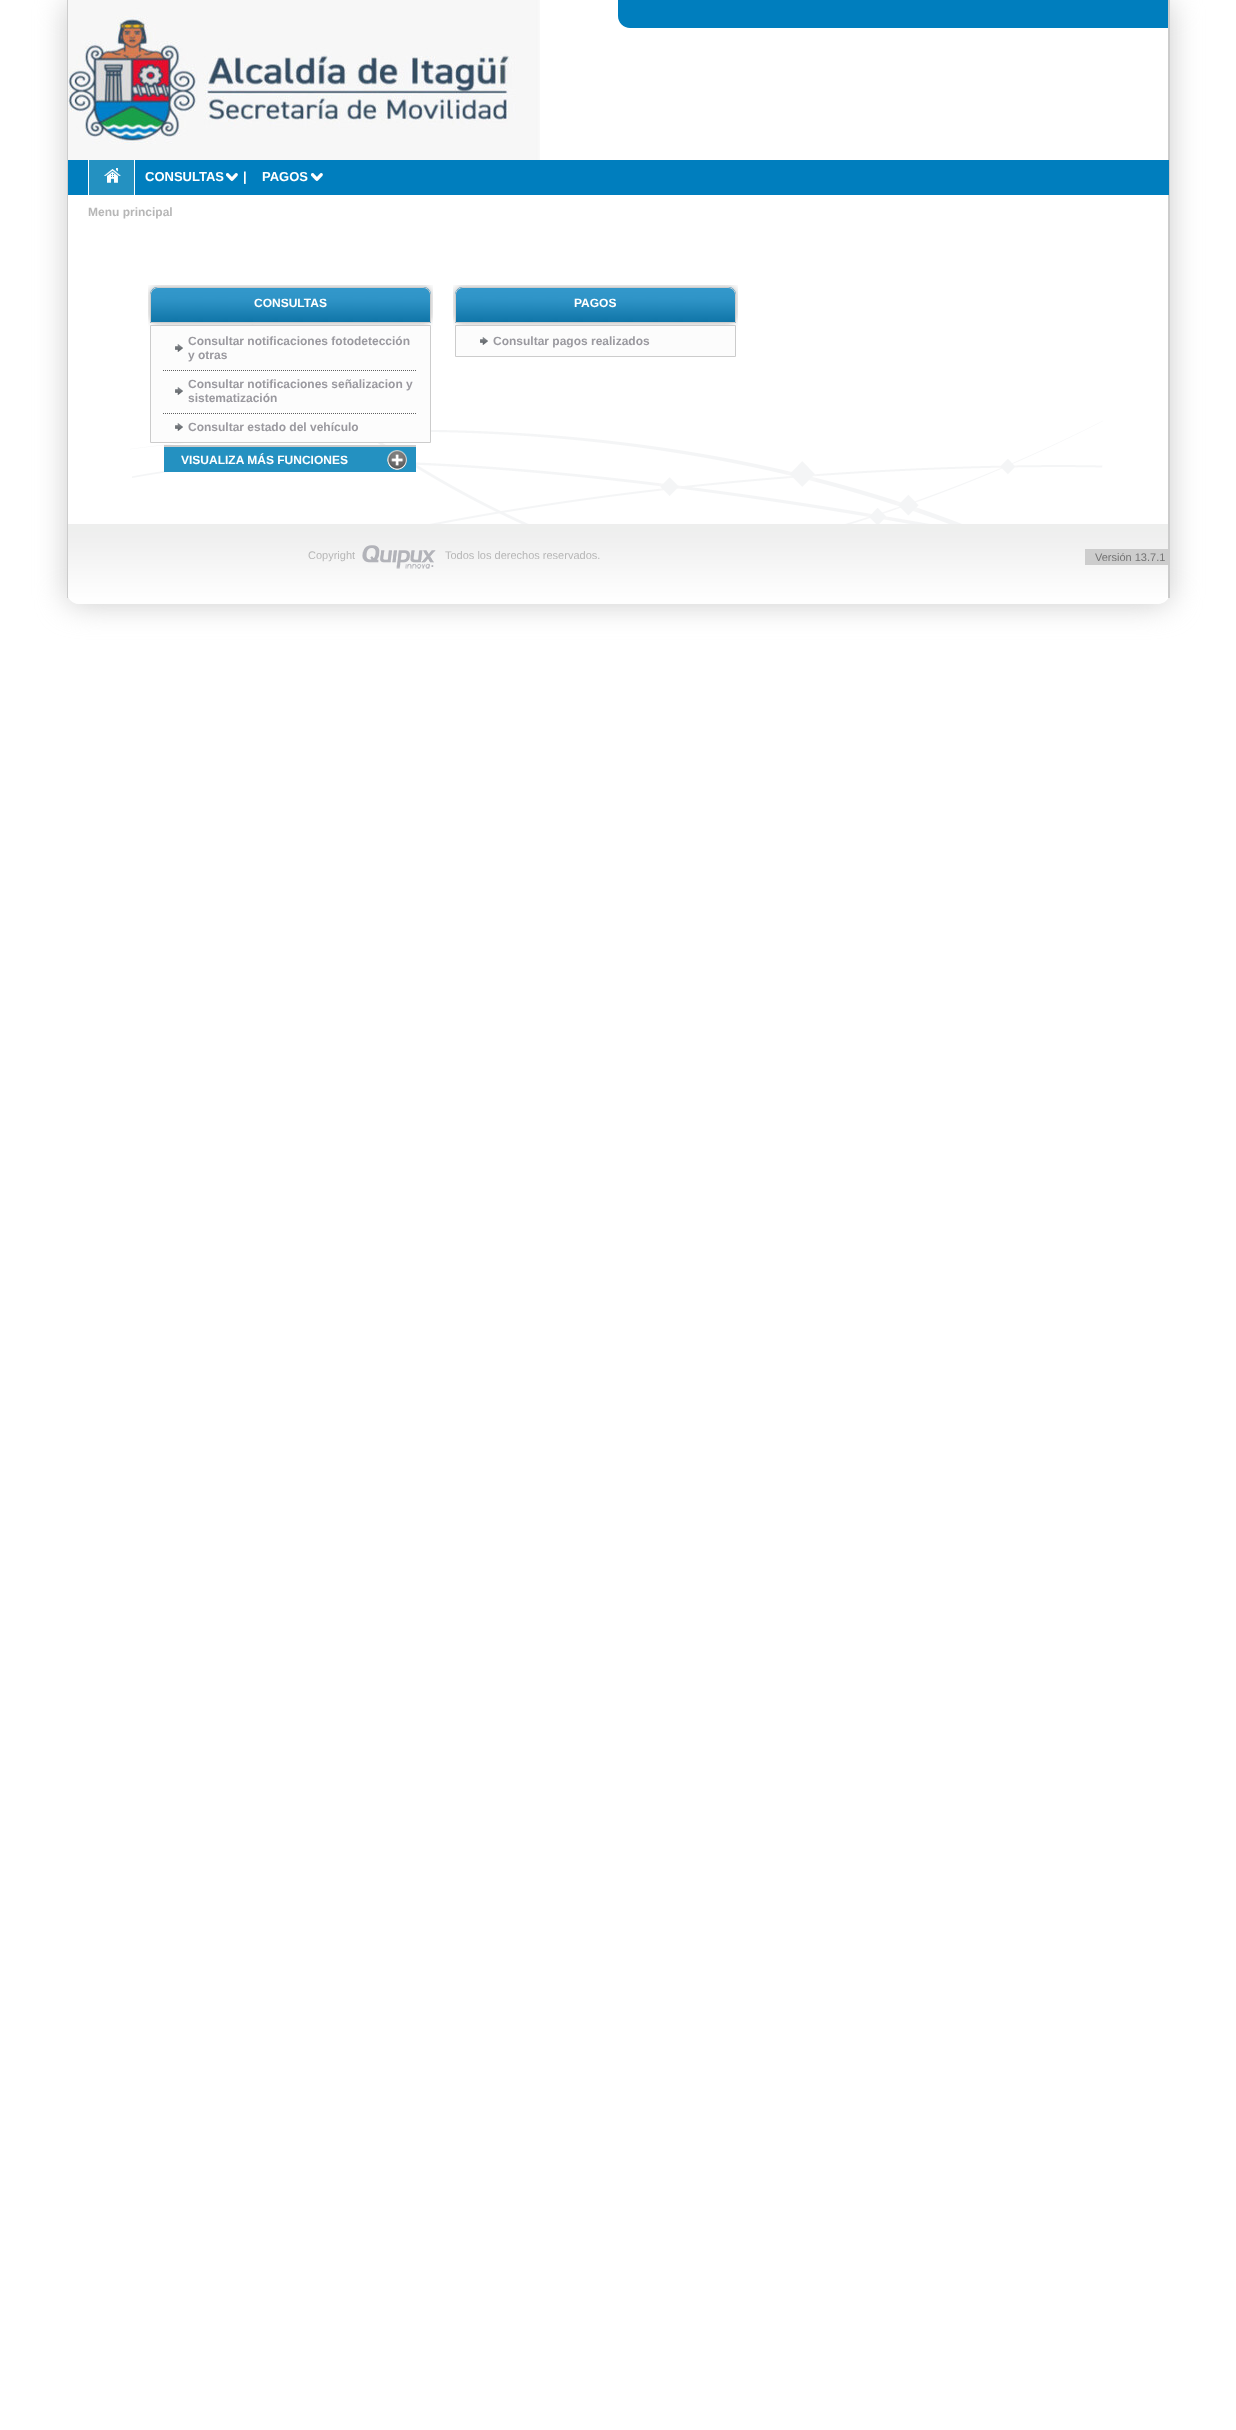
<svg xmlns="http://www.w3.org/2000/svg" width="1236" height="2430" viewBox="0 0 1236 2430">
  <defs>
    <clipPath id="clip1"><path d="M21 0H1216V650H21ZM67 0H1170V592C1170 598.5 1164.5 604 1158 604H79C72.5 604 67 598.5 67 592Z" clip-rule="evenodd"/></clipPath>
    <clipPath id="clip2"><path d="M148 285h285v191H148z"/></clipPath>
    <clipPath id="clip3"><path d="M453 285h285v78H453z"/></clipPath>
  </defs>
  <rect width="100%" height="100%" fill="#fff"/>
  <g clip-path="url(#clip1)">
    <rect x="67" width="1103" height="604" rx="12" fill="#cbcbcb" filter="blur(15px)"/>
  </g>
  <image x="130" y="324" width="973" height="200" href="img/1.png"/>
  <path d="M1168 0h2v598H1168z" fill="#ccc"/>
  <path d="M67 0h1v598H67z" fill="#ccc"/>
  <image x="68" y="0" width="472" height="160" href="img/2.png"/>
  <path d="M618 0H1168V28H630C623.5 28 618 22.5 618 16Z" fill="#007ebe"/>
  <path d="M68 160h1101v35H68z" fill="#007ebe"/>
  <path d="M89 160h45v35H89z" fill="#2491c1"/>
  <image x="104" y="168" width="17" height="15" href="img/3.png"/>
  <path d="M134 160h1v35H134z" fill="#fff"/>
  <path d="M88 160h1v35H88z" fill="#fff"/>
  <image x="226" y="173" width="12" height="8" href="img/4.png"/>
  <image x="311" y="173" width="12" height="8" href="img/4.png"/>
  <g clip-path="url(#clip2)">
    <rect x="150" y="287" width="281" height="36" rx="8" fill="#cdcdcd" filter="blur(5px)"/>
    <rect x="150" y="287" width="281" height="36" rx="8" fill="#cdcdcd" filter="blur(2.5px)"/>
  </g>
  <path d="M158 287H423C427.5 287 431 290.5 431 295V323H150V295C150 290.5 153.5 287 158 287Z" fill="#007ebe"/>
  <image x="150" y="288" width="281" height="34" href="img/5.png"/>
  <path d="M158 287.5H423C427 287.5 430.5 291 430.5 295V322.5H150.5V295C150.5 291 154 287.5 158 287.5Z" fill="none" stroke="#cdcdcd"/>
  <path d="M150.5 325.5h280v117H150.5z" fill="#fcfcfc" stroke="#ccc"/>
  <image x="175" y="344" width="8" height="8" href="img/6.png"/>
  <image x="175" y="387" width="8" height="8" href="img/6.png"/>
  <path d="M163 370.5H417" fill="none" stroke="#606060" stroke-dasharray="1 1"/>
  <image x="175" y="423" width="8" height="8" href="img/6.png"/>
  <path d="M163 413.5H417" fill="none" stroke="#606060" stroke-dasharray="1 1"/>
  <path d="M164 447h252v25H164z" fill="#2491c1"/>
  <image x="387" y="450" width="20" height="20" href="img/7.png"/>
  <path d="M164 445h252v2H164z" fill="#ccc"/>
  <g clip-path="url(#clip3)">
    <rect x="455" y="287" width="281" height="36" rx="8" fill="#cdcdcd" filter="blur(5px)"/>
    <rect x="455" y="287" width="281" height="36" rx="8" fill="#cdcdcd" filter="blur(2.5px)"/>
  </g>
  <path d="M463 287H728C732.5 287 736 290.5 736 295V323H455V295C455 290.5 458.5 287 463 287Z" fill="#007ebe"/>
  <image x="455" y="288" width="281" height="34" href="img/5.png"/>
  <path d="M463 287.5H728C732 287.5 735.5 291 735.5 295V322.5H455.5V295C455.5 291 459 287.5 463 287.5Z" fill="none" stroke="#cdcdcd"/>
  <path d="M455.5 325.5h280v31H455.5z" fill="#fcfcfc" stroke="#ccc"/>
  <image x="480" y="337" width="8" height="8" href="img/6.png"/>
  <image x="68" y="524" width="1100" height="80" href="img/8.png"/>
  <image x="362" y="545" width="74" height="24" href="img/9.png"/>
  <path d="M1085 549h83v16H1085z" fill="#cdcdcd"/>
  <g font-family="Liberation Sans" font-size="13" font-weight="bold" fill="#fff">
    <text x="145" y="181">CONSULTAS</text>
    <text x="243" y="181">|</text>
    <text x="262" y="181">PAGOS</text>
  </g>
  <text x="88" y="216" font-family="Liberation Sans" font-size="12" font-weight="bold" fill="#b7b7b7">Menu principal</text>
  <text x="254" y="307" font-family="Liberation Sans" font-size="12" font-weight="bold" fill="#fff">CONSULTAS</text>
  <g font-family="Liberation Sans" font-size="12" font-weight="bold" fill="#9a999f">
    <text x="188" y="345">Consultar notificaciones fotodetección</text>
    <text x="188" y="359">y otras</text>
    <text x="188" y="388">Consultar notificaciones señalizacion y</text>
    <text x="188" y="402">sistematización</text>
    <text x="188" y="431">Consultar estado del vehículo</text>
  </g>
  <g font-family="Liberation Sans" font-size="12" font-weight="bold" fill="#fff">
    <text x="181" y="464">VISUALIZA MÁS FUNCIONES</text>
    <text x="574" y="307">PAGOS</text>
  </g>
  <text x="493" y="345" font-family="Liberation Sans" font-size="12" font-weight="bold" fill="#9a999f">Consultar pagos realizados</text>
  <g font-family="Liberation Sans" font-size="11" fill="#b7b7b7">
    <text x="308" y="559">Copyright</text>
    <text x="445" y="559">Todos los derechos reservados.</text>
  </g>
  <text x="1095" y="561" font-family="Liberation Sans" font-size="11" fill="#737373">Versión 13.7.1</text>
</svg>
